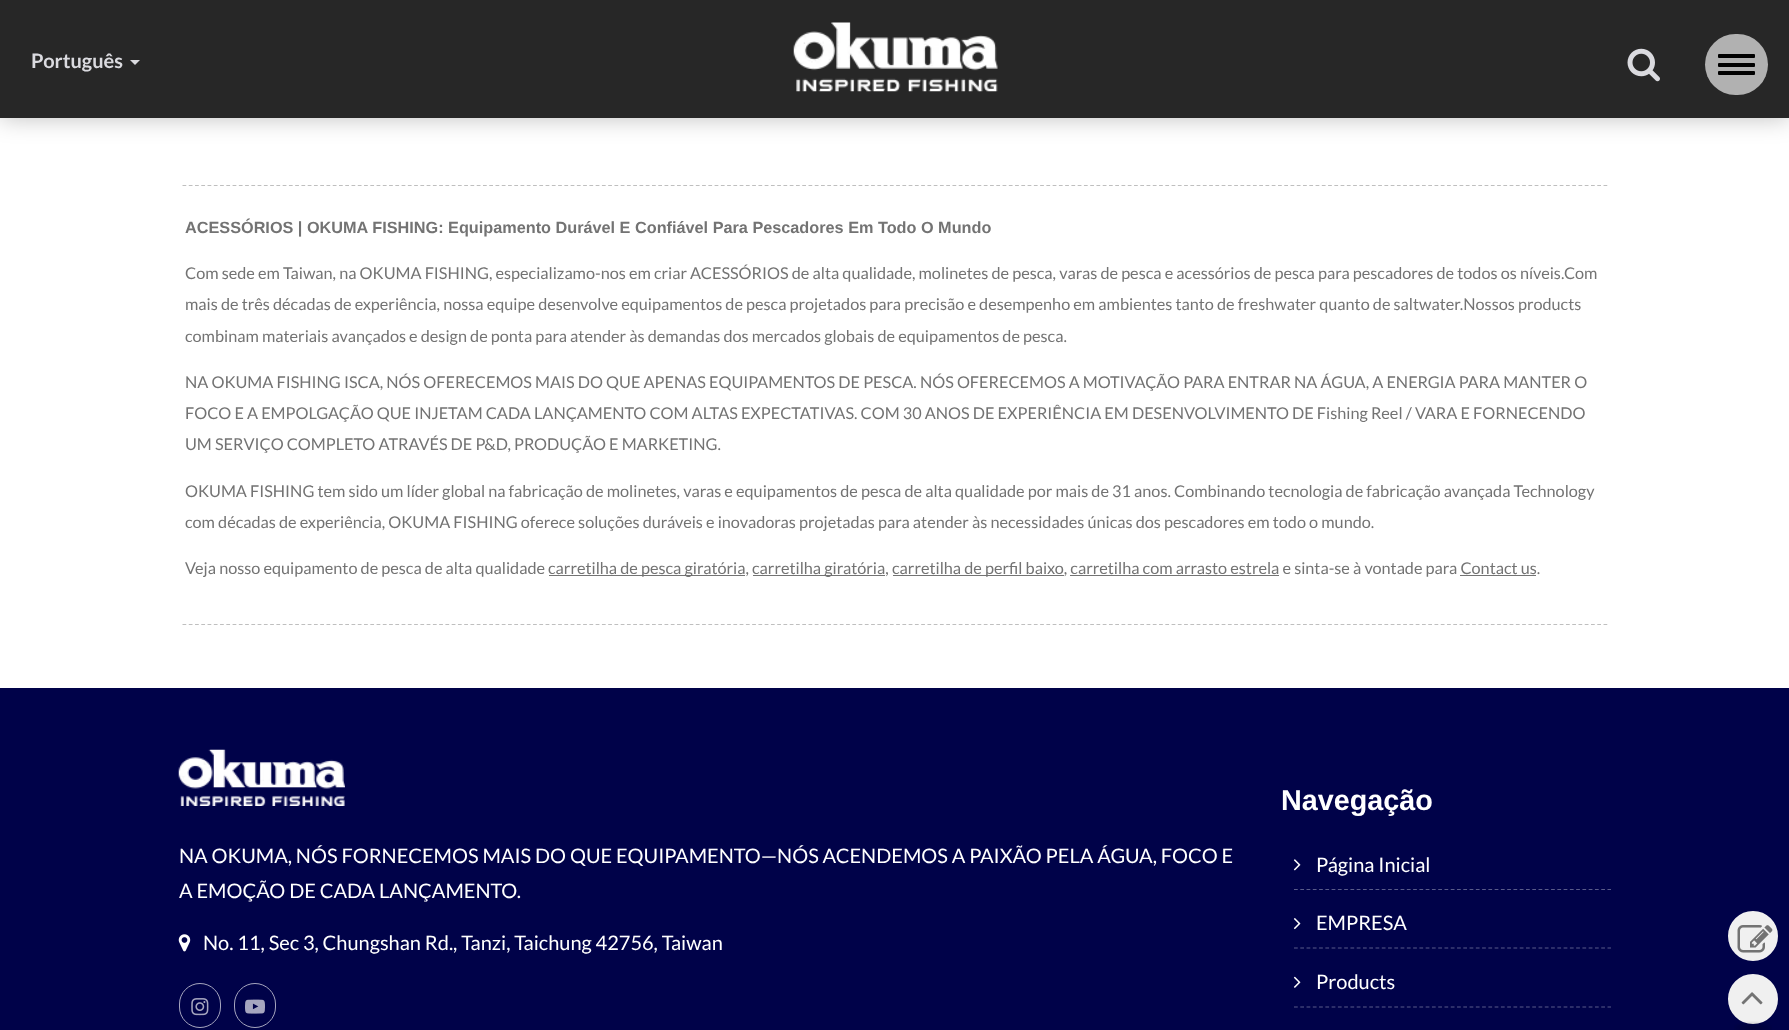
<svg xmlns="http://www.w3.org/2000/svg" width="1789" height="1030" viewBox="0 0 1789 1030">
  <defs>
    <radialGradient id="g1" gradientUnits="userSpaceOnUse" cx="0" cy="0" r="1" gradientTransform="matrix(28 0 0 9 1753 1028)"><stop offset="0" stop-color="#000" stop-opacity="0.25"/><stop offset="0.8" stop-color="#000" stop-opacity="0"/></radialGradient>
  </defs>
  <rect width="100%" height="100%" fill="#fff"/>
  <path d="M0 0h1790v118H0z" fill="#00000040" filter="blur(12.5px)"/>
  <path d="M0 0h1789v118H0z" fill="#272727"/>
  <path d="M130 60H140L135 65Z" fill="#dadadf"/>
  <image x="793" y="22" width="205" height="70" href="img/1.png"/>
  <image x="1627" y="48" width="33" height="34" href="img/2.png"/>
  <rect x="1705" y="34" width="63" height="61" rx="30.5" fill="#b1b1b1"/>
  <rect x="1718" y="54" width="37" height="4" rx="1" fill="#000"/>
  <rect x="1718" y="63" width="37" height="4" rx="1" fill="#000"/>
  <rect x="1718" y="71" width="37" height="4" rx="1" fill="#000"/>
  <path d="M182.5 185.5H1607.5" fill="none" stroke="#bfbfbf" stroke-width="1.2" stroke-dasharray="3.75 2.51"/>
  <path d="M182.5 624.5H1607.5" fill="none" stroke="#bfbfbf" stroke-width="1.2" stroke-dasharray="3.75 2.51"/>
  <path d="M549 575h196v1H549z" fill="#737373"/>
  <path d="M753 575h132v1H753z" fill="#737373"/>
  <path d="M893 575h171v1H893z" fill="#737373"/>
  <path d="M1070 575h209v1H1070z" fill="#737373"/>
  <path d="M1460 575h76v1H1460z" fill="#737373"/>
  <path d="M0 688h1789v342H0z" fill="#000249"/>
  <image x="178" y="749" width="167" height="57" href="img/3.png"/>
  <image x="178" y="934" width="13" height="18" href="img/4.png"/>
  <rect x="179.5" y="983.5" width="41" height="44" rx="20.5" fill="none" stroke="#a6a6bf"/>
  <image x="191" y="998" width="18" height="18" href="img/5.png"/>
  <rect x="234.5" y="983.5" width="41" height="44" rx="20.5" fill="none" stroke="#a6a6bf"/>
  <image x="245" y="999" width="20" height="15" href="img/6.png"/>
  <path d="M1294 889.5H1611" fill="none" stroke="#595b89" stroke-width="1.2" stroke-dasharray="3.75 2.52"/>
  <image x="1293" y="859" width="8" height="12" href="img/7.png"/>
  <path d="M1294 948H1611" fill="none" stroke="#595b89" stroke-width="1.2" stroke-dasharray="3.75 2.52"/>
  <image x="1293" y="918" width="8" height="12" href="img/8.png"/>
  <path d="M1294 1007H1611" fill="none" stroke="#595b89" stroke-width="1.2" stroke-dasharray="3.75 2.52"/>
  <image x="1293" y="976" width="8" height="12" href="img/9.png"/>
  <circle cx="1753" cy="936" r="23.5" fill="#f0f0f0" stroke="#f0f0f0" stroke-width="3"/>
  <image x="1737" y="925" width="36" height="28" href="img/10.png"/>
  <circle cx="1753" cy="999" r="23.5" fill="#f0f0f0" stroke="#f0f0f0" stroke-width="3"/>
  <image x="1741" y="992" width="22" height="13" href="img/11.png"/>
  <path d="M1734 1021h38v9H1734z" fill="url(#g1)"/>
  <text x="31" y="68" font-family="Lato" font-size="20" font-weight="bold" fill="#dadadf">Português</text>
  <text x="185" y="233" font-family="Liberation Sans" font-size="16.25" font-weight="bold" fill="#737373">ACESSÓRIOS | OKUMA FISHING: Equipamento Durável E Confiável Para Pescadores Em Todo O Mundo</text>
  <g font-family="Lato" font-size="16.25" fill="#737373">
    <text x="185" y="279">Com sede em Taiwan, na OKUMA FISHING, especializamo-nos em criar ACESSÓRIOS de alta qualidade, molinetes de pesca, varas de pesca e acessórios de pesca para pescadores de todos os níveis.Com</text>
    <text x="185" y="310">mais de três décadas de experiência, nossa equipe desenvolve equipamentos de pesca projetados para precisão e desempenho em ambientes tanto de freshwater quanto de saltwater.Nossos products</text>
    <text x="185" y="342">combinam materiais avançados e design de ponta para atender às demandas dos mercados globais de equipamentos de pesca.</text>
    <text x="185" y="388">NA OKUMA FISHING ISCA, NÓS OFERECEMOS MAIS DO QUE APENAS EQUIPAMENTOS DE PESCA. NÓS OFERECEMOS A MOTIVAÇÃO PARA ENTRAR NA ÁGUA, A ENERGIA PARA MANTER O</text>
    <text x="185" y="419">FOCO E A EMPOLGAÇÃO QUE INJETAM CADA LANÇAMENTO COM ALTAS EXPECTATIVAS. COM 30 ANOS DE EXPERIÊNCIA EM DESENVOLVIMENTO DE Fishing Reel / VARA E FORNECENDO</text>
    <text x="185" y="450">UM SERVIÇO COMPLETO ATRAVÉS DE P&amp;D, PRODUÇÃO E MARKETING.</text>
    <text x="185" y="497">OKUMA FISHING tem sido um líder global na fabricação de molinetes, varas e equipamentos de pesca de alta qualidade por mais de 31 anos. Combinando tecnologia de fabricação avançada Technology</text>
    <text x="185" y="528">com décadas de experiência, OKUMA FISHING oferece soluções duráveis e inovadoras projetadas para atender às necessidades únicas dos pescadores em todo o mundo.</text>
    <text x="185" y="574">Veja nosso equipamento de pesca de alta qualidade</text>
    <text x="548" y="574">carretilha de pesca giratória,</text>
    <text x="752" y="574">carretilha giratória,</text>
    <text x="892" y="574">carretilha de perfil baixo, carretilha com arrasto estrela e sinta-se à vontade para Contact us.</text>
  </g>
  <g font-family="Lato" font-size="20" fill="#fff">
    <text x="179" y="863">NA OKUMA, NÓS FORNECEMOS MAIS DO QUE EQUIPAMENTO—NÓS ACENDEMOS A PAIXÃO PELA ÁGUA, FOCO E</text>
    <text x="179" y="898">A EMOÇÃO DE CADA LANÇAMENTO.</text>
    <text x="203" y="950">No. 11, Sec 3, Chungshan Rd., Tanzi, Taichung 42756, Taiwan</text>
  </g>
  <text x="1281" y="810" font-family="Liberation Sans" font-size="28.75" font-weight="bold" fill="#fff">Navegação</text>
  <g font-family="Lato" font-size="20" fill="#fff">
    <text x="1316" y="872">Página Inicial</text>
    <text x="1316" y="930">EMPRESA</text>
    <text x="1316" y="989">Products</text>
  </g>
</svg>
